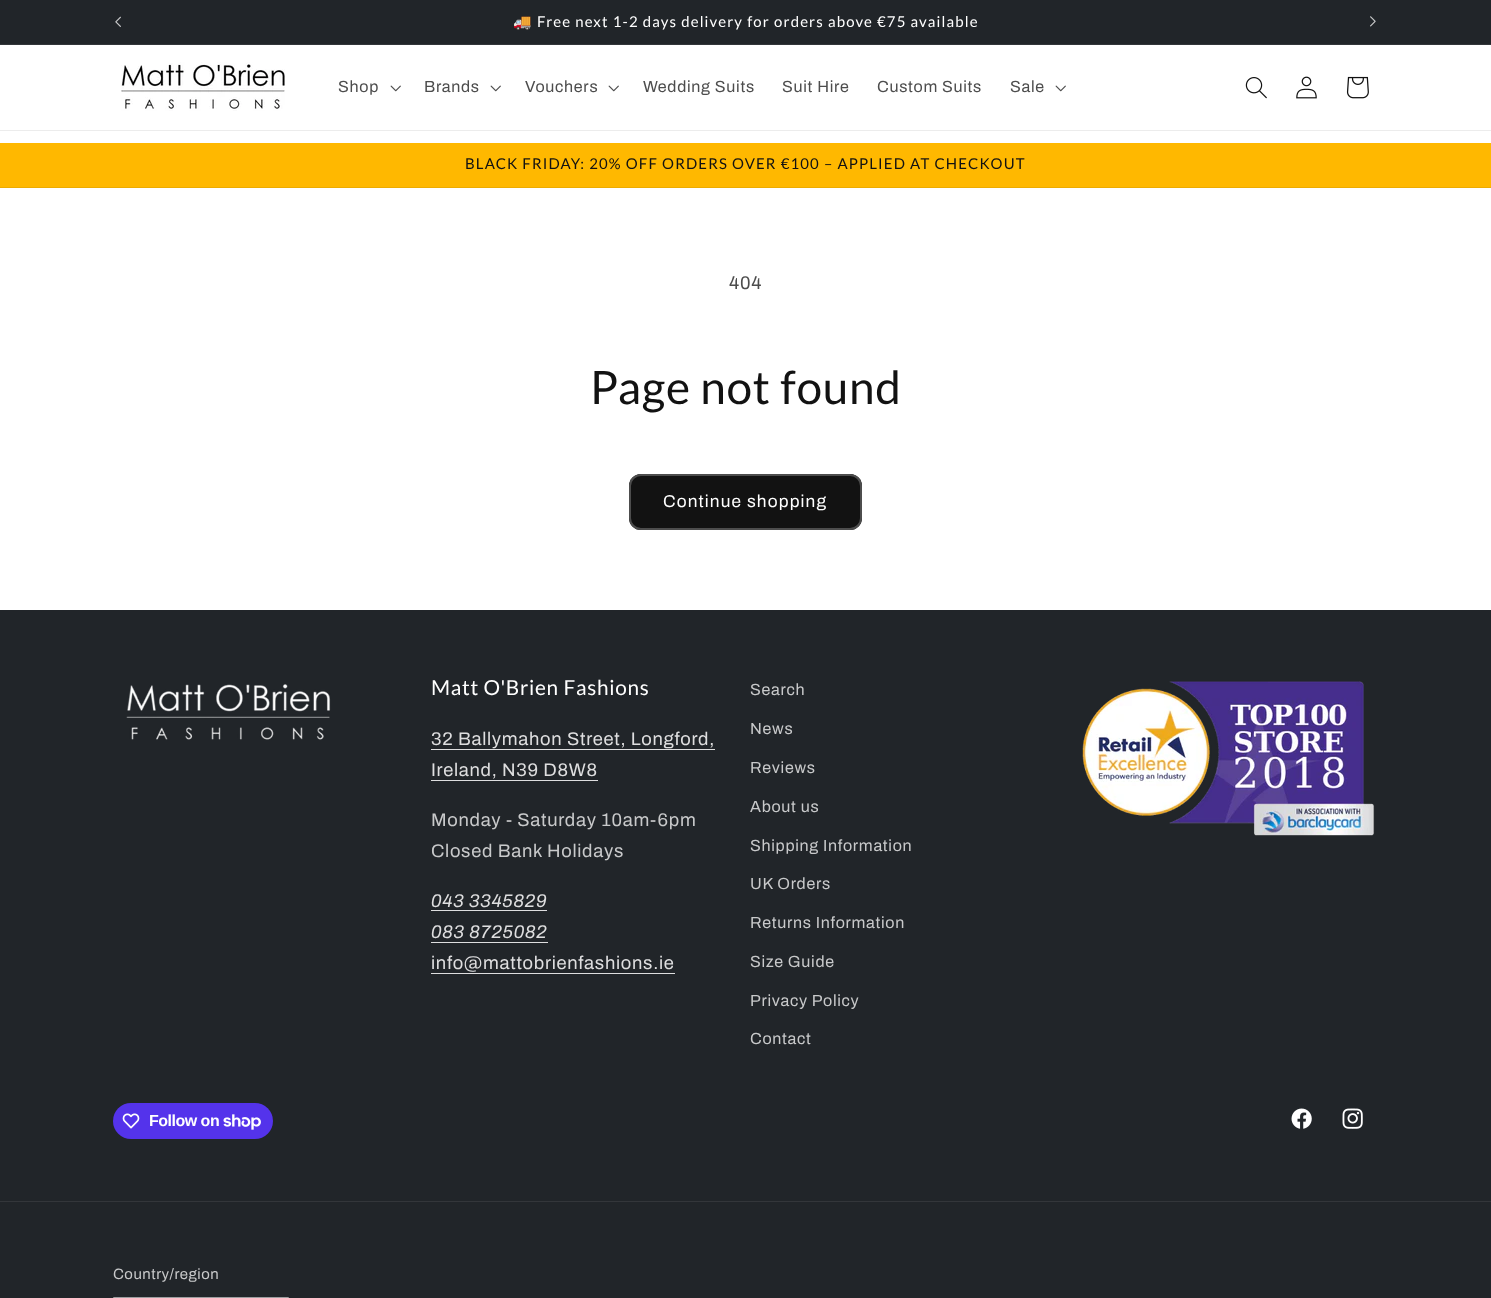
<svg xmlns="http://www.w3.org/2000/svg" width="1491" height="1298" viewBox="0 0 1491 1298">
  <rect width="100%" height="100%" fill="#fff"/>
  <path d="M0 0h1491v44H0z" fill="#212529"/>
  <path d="M0 44h1491v1H0z" fill="#33363a"/>
  <image x="115" y="16" width="6" height="11" href="img/1.png"/>
  <image x="1370" y="16" width="6" height="11" href="img/2.png"/>
  <path d="M0 130h1491v1H0z" fill="#ececec"/>
  <image x="121" y="62" width="164" height="49" href="img/3.png"/>
  <image x="390" y="85" width="11" height="7" href="img/4.png"/>
  <image x="490" y="85" width="11" height="7" href="img/4.png"/>
  <image x="608" y="85" width="11" height="7" href="img/4.png"/>
  <image x="1055" y="85" width="11" height="7" href="img/4.png"/>
  <image x="1245" y="77" width="22" height="22" href="img/5.png"/>
  <image x="1296" y="76" width="21" height="23" href="img/6.png"/>
  <image x="1346" y="76" width="23" height="23" href="img/7.png"/>
  <path d="M0 143h1491v44H0z" fill="#ffb800"/>
  <path d="M0 187h1491v1H0z" fill="#ecab01"/>
  <rect x="629" y="474" width="233" height="56" rx="12" fill="#121212"/>
  <rect x="630" y="475" width="231" height="54" rx="11" fill="none" stroke="#121212" stroke-width="2"/>
  <rect x="630" y="475" width="231" height="54" rx="11" fill="none" stroke="#ffffff40" stroke-width="2"/>
  <path d="M0 610h1491v688H0z" fill="#212529"/>
  <image x="126" y="684" width="205" height="56" href="img/8.png"/>
  <path d="M431 749h284v1H431z" fill="#dededf"/>
  <path d="M431 780h167v1H431z" fill="#dededf"/>
  <path d="M431 910h116v1H431z" fill="#dededf"/>
  <path d="M431 942h117v1H431z" fill="#dededf"/>
  <path d="M431 973h244v1H431z" fill="#dededf"/>
  <image x="1082" y="681" width="293" height="155" href="img/9.png"/>
  <rect x="113" y="1103" width="160" height="36" rx="18" fill="#5433eb"/>
  <image x="122" y="1113" width="18" height="16" href="img/10.png"/>
  <image x="223" y="1114" width="38" height="16" href="img/11.png"/>
  <image x="1291" y="1108" width="21" height="21" href="img/12.png"/>
  <image x="1342" y="1108" width="21" height="21" href="img/13.png"/>
  <path d="M0 1201h1491v1H0z" fill="#33363a"/>
  <path d="M113.5 1297.5h175v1H113.5z" fill="none" stroke="#9b9d9f"/>
  <text x="513" y="27" font-family="Noto Color Emoji" font-size="14.95" letter-spacing="1.15" fill="#fff">🚚</text>
  <text x="537" y="27" font-family="Lato" font-size="14.95" letter-spacing="1.15" fill="#fff">Free next 1-2 days delivery for orders above €75 available</text>
  <g font-family="Archivo" font-size="16.1" letter-spacing="0.7" fill="#4d4d4d">
    <text x="338" y="92">Shop</text>
    <text x="424" y="92">Brands</text>
    <text x="525" y="92">Vouchers</text>
    <text x="643" y="92">Wedding Suits</text>
    <text x="782" y="92">Suit Hire</text>
    <text x="877" y="92">Custom Suits</text>
    <text x="1010" y="92">Sale</text>
  </g>
  <text x="465" y="169" font-family="Lato" font-size="14.95" letter-spacing="1.15" fill="#121212">BLACK FRIDAY: 20% OFF ORDERS OVER €100 – APPLIED AT CHECKOUT</text>
  <text x="729" y="289" font-family="Archivo" font-size="18.4" letter-spacing="0.7" fill="#4d4d4d">404</text>
  <text x="590" y="404" font-family="Lato" font-size="46" letter-spacing="0.7" fill="#121212">Page not found</text>
  <text x="663" y="507" font-family="Archivo" font-size="17.25" letter-spacing="1.15" fill="#fff">Continue shopping</text>
  <text x="431" y="695" font-family="Lato" font-size="20.75" letter-spacing="0.7" fill="#fff">Matt O'Brien Fashions</text>
  <g font-family="Archivo" font-size="18.4" letter-spacing="0.7" fill="#dededf">
    <text x="431" y="745">32 Ballymahon Street, Longford,</text>
    <text x="431" y="776">Ireland, N39 D8W8</text>
  </g>
  <g font-family="Archivo" font-size="18.4" letter-spacing="0.7" fill="#c8c9ca">
    <text x="431" y="826">Monday - Saturday 10am-6pm</text>
    <text x="431" y="857">Closed Bank Holidays</text>
  </g>
  <g font-family="Archivo" font-size="18.4" font-style="italic" letter-spacing="0.7" fill="#dededf">
    <text x="431" y="907">043 3345829</text>
    <text x="431" y="938">083 8725082</text>
  </g>
  <text x="431" y="969" font-family="Archivo" font-size="18.4" letter-spacing="0.7" fill="#dededf">info@mattobrienfashions.ie</text>
  <g font-family="Archivo" font-size="16.1" letter-spacing="0.7" fill="#c8c9ca">
    <text x="750" y="695">Search</text>
    <text x="750" y="734">News</text>
    <text x="750" y="773">Reviews</text>
    <text x="750" y="812">About us</text>
    <text x="750" y="851">Shipping Information</text>
    <text x="750" y="889">UK Orders</text>
    <text x="750" y="928">Returns Information</text>
    <text x="750" y="967">Size Guide</text>
    <text x="750" y="1006">Privacy Policy</text>
    <text x="750" y="1044">Contact</text>
  </g>
  <text x="149" y="1126" font-family="Liberation Sans" font-size="16" font-weight="bold" letter-spacing="-0.5" fill="#fff">Follow on</text>
  <text x="113" y="1279" font-family="Archivo" font-size="14.95" letter-spacing="0.5" fill="#c8c9ca">Country/region</text>
</svg>
